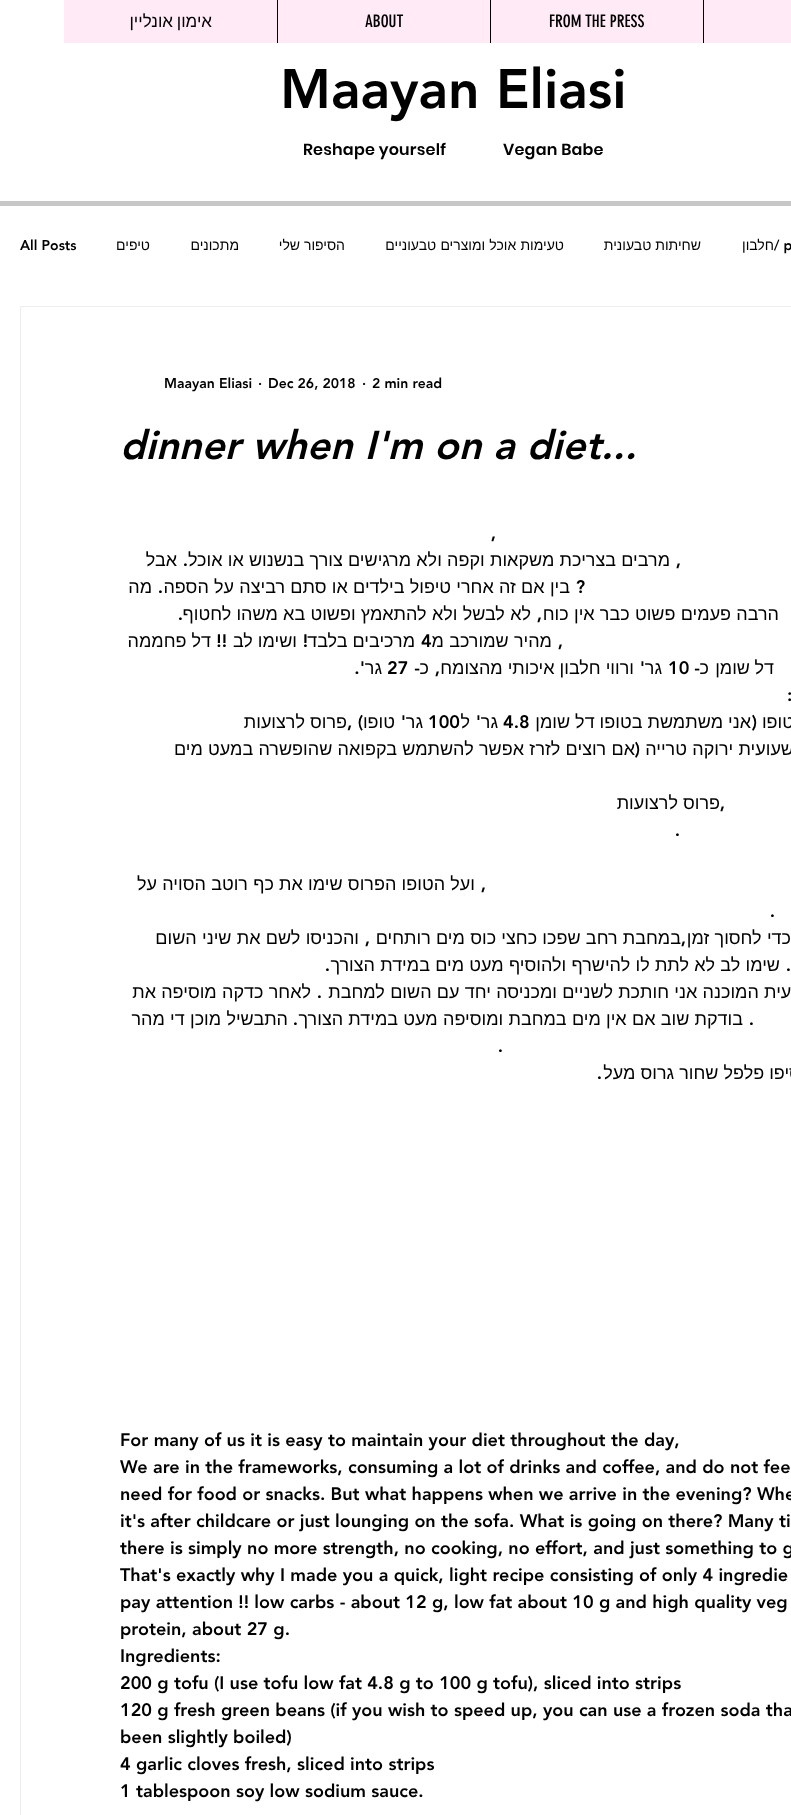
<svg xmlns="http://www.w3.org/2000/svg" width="791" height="1815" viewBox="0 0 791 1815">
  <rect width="100%" height="100%" fill="#fff"/>
  <path d="M64 0h727v43H64z" fill="#ffeaf6"/>
  <path d="M277 0h1v43H277z" fill="#000"/>
  <path d="M490 0h1v43H490z" fill="#000"/>
  <path d="M703 0h1v43H703z" fill="#000"/>
  <path d="M0 201h791v5H0z" fill="#c7c7c7"/>
  <path d="M20.5 306.5h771v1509H20.5z" fill="none" stroke="#eeecec"/>
  <text x="212" y="27" word-spacing="-1" font-family="Liberation Sans" font-size="17" direction="rtl" fill="#000">אימון אונליין</text>
  <g font-family="'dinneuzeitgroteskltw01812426'" font-size="17" fill="#000">
    <text x="365" y="27">ABOUT</text>
    <text x="549" y="27">FROM THE PRESS</text>
  </g>
  <text x="280" y="108" font-family="'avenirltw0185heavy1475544'" font-size="55" font-weight="900" fill="#000">Maayan Eliasi</text>
  <g font-family="Poppins" font-size="16" font-weight="600" letter-spacing="0.2" fill="#000">
    <text x="303" y="155">Reshape yourself</text>
    <text x="503" y="155">Vegan Babe</text>
  </g>
  <text x="20" y="250" font-family="'avenirltw0185heavy1475544'" font-size="14" font-weight="900" fill="#000">All Posts</text>
  <g font-family="Liberation Sans" font-size="14" direction="rtl" fill="#000">
    <text x="150" y="250">טיפים</text>
    <text x="239" y="250">מתכונים</text>
    <text x="345" y="250">הסיפור שלי</text>
    <text x="564" y="250" word-spacing="0.25">טעימות אוכל ומוצרים טבעוניים</text>
    <text x="701" y="250">שחיתות טבעונית</text>
    <text x="774" y="250">חלבון</text>
  </g>
  <g font-family="'avenirltw0185heavy1475544'" font-size="14" font-weight="900" fill="#000">
    <text x="774" y="250">/ p</text>
    <text x="164" y="388">Maayan Eliasi</text>
    <text x="258" y="388">·</text>
    <text x="268" y="388">Dec 26, 2018</text>
    <text x="362" y="388">·</text>
    <text x="372" y="388">2 min read</text>
  </g>
  <text x="120" y="459" font-family="'avenirltw0185heavy1475544'" font-size="40" font-weight="900" font-style="italic" fill="#000">dinner when I'm on a diet...</text>
  <text x="496" y="539" font-family="'avenirltw0185heavy1475544'" font-size="18" font-weight="900" direction="rtl" fill="#000">,</text>
  <text x="177" y="566" font-family="Liberation Sans" font-size="18" direction="rtl" fill="#000">אבל</text>
  <text x="188" y="566" font-family="'avenirltw0185heavy1475544'" font-size="18" font-weight="900" direction="rtl" fill="#000">.</text>
  <text x="670" y="566" word-spacing="0.25" font-family="Liberation Sans" font-size="18" direction="rtl" fill="#000">מרבים בצריכת משקאות וקפה ולא מרגישים צורך בנשנוש או אוכל</text>
  <text x="681" y="566" font-family="'avenirltw0185heavy1475544'" font-size="18" font-weight="900" direction="rtl" fill="#000">,</text>
  <text x="152" y="593" font-family="Liberation Sans" font-size="18" direction="rtl" fill="#000">מה</text>
  <text x="163" y="593" font-family="'avenirltw0185heavy1475544'" font-size="18" font-weight="900" direction="rtl" fill="#000">.</text>
  <text x="570" y="593" word-spacing="0.25" font-family="Liberation Sans" font-size="18" direction="rtl" fill="#000">בין אם זה אחרי טיפול בילדים או סתם רביצה על הספה</text>
  <g font-family="'avenirltw0185heavy1475544'" font-size="18" font-weight="900" direction="rtl" fill="#000">
    <text x="585" y="593">?</text>
    <text x="183" y="620">.</text>
  </g>
  <text x="531" y="620" word-spacing="0.25" font-family="Liberation Sans" font-size="18" direction="rtl" fill="#000">לא לבשל ולא להתאמץ ופשוט בא משהו לחטוף</text>
  <text x="542" y="620" font-family="'avenirltw0185heavy1475544'" font-size="18" font-weight="900" direction="rtl" fill="#000">,</text>
  <g font-family="Liberation Sans" font-size="18" direction="rtl" fill="#000">
    <text x="779" y="620" word-spacing="0.25">הרבה פעמים פשוט כבר אין כוח</text>
    <text x="211" y="647">דל פחממה</text>
  </g>
  <text x="227" y="647" font-family="'avenirltw0185heavy1475544'" font-size="18" font-weight="900" direction="rtl" fill="#000">!!</text>
  <text x="297" y="647" font-family="Liberation Sans" font-size="18" direction="rtl" fill="#000">ושימו לב</text>
  <text x="308" y="647" font-family="'avenirltw0185heavy1475544'" font-size="18" font-weight="900" direction="rtl" fill="#000">!</text>
  <text x="415" y="647" font-family="Liberation Sans" font-size="18" direction="rtl" fill="#000">מרכיבים בלבד</text>
  <text x="421" y="647" font-family="'avenirltw0185heavy1475544'" font-size="18" font-weight="900" fill="#000">4</text>
  <text x="552" y="647" word-spacing="0.25" font-family="Liberation Sans" font-size="18" direction="rtl" fill="#000">מהיר שמורכב מ</text>
  <g font-family="'avenirltw0185heavy1475544'" font-size="18" font-weight="900" direction="rtl" fill="#000">
    <text x="563" y="647">,</text>
    <text x="365" y="674">'.</text>
  </g>
  <text x="382" y="674" font-family="Liberation Sans" font-size="18" direction="rtl" fill="#000">גר</text>
  <text x="387" y="674" font-family="'avenirltw0185heavy1475544'" font-size="18" font-weight="900" fill="#000">27</text>
  <text x="420" y="674" font-family="'avenirltw0185heavy1475544'" font-size="18" font-weight="900" direction="rtl" fill="#000">-</text>
  <g font-family="Liberation Sans" font-size="18" direction="rtl" fill="#000">
    <text x="429" y="674">כ</text>
    <text x="634" y="674">ורווי חלבון איכותי מהצומח</text>
  </g>
  <text x="645" y="674" font-family="'avenirltw0185heavy1475544'" font-size="18" font-weight="900" direction="rtl" fill="#000">'</text>
  <text x="662" y="674" font-family="Liberation Sans" font-size="18" direction="rtl" fill="#000">גר</text>
  <text x="668" y="674" font-family="'avenirltw0185heavy1475544'" font-size="18" font-weight="900" fill="#000">10</text>
  <text x="700" y="674" font-family="'avenirltw0185heavy1475544'" font-size="18" font-weight="900" direction="rtl" fill="#000">-</text>
  <g font-family="Liberation Sans" font-size="18" direction="rtl" fill="#000">
    <text x="709" y="674">כ</text>
    <text x="750" y="674">שומן</text>
    <text x="774" y="674">דל</text>
  </g>
  <text x="440" y="674" font-family="'avenirltw0185heavy1475544'" font-size="18" font-weight="900" direction="rtl" fill="#000">,</text>
  <text x="787" y="701" font-family="'avenirltw0185heavy1475544'" font-size="18" font-weight="900" fill="#000">:</text>
  <g font-family="Liberation Sans" font-size="18" direction="rtl" fill="#000">
    <text x="305" y="728">לרצועות</text>
    <text x="347" y="728">פרוס</text>
  </g>
  <text x="363" y="728" font-family="'avenirltw0185heavy1475544'" font-size="18" font-weight="900" direction="rtl" fill="#000">) ,</text>
  <text x="395" y="728" font-family="Liberation Sans" font-size="18" direction="rtl" fill="#000">טופו</text>
  <text x="406" y="728" font-family="'avenirltw0185heavy1475544'" font-size="18" font-weight="900" direction="rtl" fill="#000">'</text>
  <text x="423" y="728" font-family="Liberation Sans" font-size="18" direction="rtl" fill="#000">גר</text>
  <text x="428" y="728" font-family="'avenirltw0185heavy1475544'" font-size="18" font-weight="900" fill="#000">100</text>
  <text x="470" y="728" font-family="Liberation Sans" font-size="18" direction="rtl" fill="#000">ל</text>
  <text x="481" y="728" font-family="'avenirltw0185heavy1475544'" font-size="18" font-weight="900" direction="rtl" fill="#000">'</text>
  <text x="498" y="728" font-family="Liberation Sans" font-size="18" direction="rtl" fill="#000">גר</text>
  <text x="503" y="728" font-family="'avenirltw0185heavy1475544'" font-size="18" font-weight="900" fill="#000">4.8</text>
  <text x="751" y="728" font-family="Liberation Sans" font-size="18" direction="rtl" fill="#000">אני משתמשת בטופו דל שומן</text>
  <text x="757" y="728" font-family="'avenirltw0185heavy1475544'" font-size="18" font-weight="900" direction="rtl" fill="#000">(</text>
  <g font-family="Liberation Sans" font-size="18" direction="rtl" fill="#000">
    <text x="794" y="728">טופו</text>
    <text x="635" y="755" word-spacing="0.25">אם רוצים לזרז אפשר להשתמש בקפואה שהופשרה במעט מים</text>
  </g>
  <text x="640" y="755" font-family="'avenirltw0185heavy1475544'" font-size="18" font-weight="900" direction="rtl" fill="#000">(</text>
  <g font-family="Liberation Sans" font-size="18" direction="rtl" fill="#000">
    <text x="794" y="755" word-spacing="0.25">שעועית ירוקה טרייה</text>
    <text x="720" y="809">פרוס לרצועות</text>
  </g>
  <g font-family="'avenirltw0185heavy1475544'" font-size="18" font-weight="900" direction="rtl" fill="#000">
    <text x="725" y="809">,</text>
    <text x="680" y="836">.</text>
  </g>
  <text x="475" y="890" word-spacing="0.25" font-family="Liberation Sans" font-size="18" direction="rtl" fill="#000">ועל הטופו הפרוס שימו את כף רוטב הסויה על</text>
  <g font-family="'avenirltw0185heavy1475544'" font-size="18" font-weight="900" direction="rtl" fill="#000">
    <text x="486" y="890">,</text>
    <text x="775" y="917">.</text>
  </g>
  <text x="359" y="944" word-spacing="0.25" font-family="Liberation Sans" font-size="18" direction="rtl" fill="#000">והכניסו לשם את שיני השום</text>
  <text x="370" y="944" font-family="'avenirltw0185heavy1475544'" font-size="18" font-weight="900" direction="rtl" fill="#000">,</text>
  <text x="681" y="944" word-spacing="0.25" font-family="Liberation Sans" font-size="18" direction="rtl" fill="#000">במחבת רחב שפכו כחצי כוס מים רותחים</text>
  <text x="686" y="944" font-family="'avenirltw0185heavy1475544'" font-size="18" font-weight="900" direction="rtl" fill="#000">,</text>
  <text x="791" y="944" word-spacing="0.25" font-family="Liberation Sans" font-size="18" direction="rtl" fill="#000">כדי לחסוך זמן</text>
  <text x="330" y="971" font-family="'avenirltw0185heavy1475544'" font-size="18" font-weight="900" direction="rtl" fill="#000">.</text>
  <text x="780" y="971" word-spacing="0.25" font-family="Liberation Sans" font-size="18" direction="rtl" fill="#000">שימו לב לא לתת לו להישרף ולהוסיף מעט מים במידת הצורך</text>
  <text x="791" y="971" font-family="'avenirltw0185heavy1475544'" font-size="18" font-weight="900" direction="rtl" fill="#000">.</text>
  <text x="311" y="998" word-spacing="0.25" font-family="Liberation Sans" font-size="18" direction="rtl" fill="#000">לאחר כדקה מוסיפה את</text>
  <text x="322" y="998" font-family="'avenirltw0185heavy1475544'" font-size="18" font-weight="900" direction="rtl" fill="#000">.</text>
  <g font-family="Liberation Sans" font-size="18" direction="rtl" fill="#000">
    <text x="860" y="998" word-spacing="0.25">את השעועית המוכנה אני חותכת לשניים ומכניסה יחד עם השום למחבת</text>
    <text x="288" y="1025" word-spacing="0.25">התבשיל מוכן די מהר</text>
  </g>
  <text x="298" y="1025" font-family="'avenirltw0185heavy1475544'" font-size="18" font-weight="900" direction="rtl" fill="#000">.</text>
  <text x="743" y="1025" word-spacing="0.25" font-family="Liberation Sans" font-size="18" direction="rtl" fill="#000">בודקת שוב אם אין מים במחבת ומוסיפה מעט במידת הצורך</text>
  <g font-family="'avenirltw0185heavy1475544'" font-size="18" font-weight="900" direction="rtl" fill="#000">
    <text x="754" y="1025">.</text>
    <text x="503" y="1052">.</text>
    <text x="602" y="1079">.</text>
  </g>
  <text x="817" y="1079" font-family="Liberation Sans" font-size="18" direction="rtl" fill="#000">הוסיפו פלפל שחור גרוס מעל</text>
  <g font-family="'avenirltw0185heavy1475544'" font-size="18" font-weight="900" fill="#000">
    <text x="120" y="1446">For many of us it is easy to maintain your diet throughout the day,</text>
    <text x="120" y="1473">We are in the frameworks, consuming a lot of drinks and coffee, and do not fee</text>
    <text x="120" y="1500">need for food or snacks. But what happens when we arrive in the evening? Whe</text>
    <text x="120" y="1527">it's after childcare or just lounging on the sofa. What is going on there? Many ti</text>
    <text x="120" y="1554">there is simply no more strength, no cooking, no effort, and just something to g</text>
    <text x="120" y="1581">That's exactly why I made you a quick, light recipe consisting of only 4 ingredie</text>
    <text x="120" y="1608">pay attention !! low carbs - about 12 g, low fat about 10 g and high quality veg</text>
    <text x="120" y="1635">protein, about 27 g.</text>
    <text x="120" y="1662">Ingredients:</text>
    <text x="120" y="1689">200 g tofu (I use tofu low fat 4.8 g to 100 g tofu), sliced into strips</text>
    <text x="120" y="1716">120 g fresh green beans (if you wish to speed up, you can use a frozen soda tha</text>
    <text x="120" y="1743">been slightly boiled)</text>
    <text x="120" y="1770">4 garlic cloves fresh, sliced into strips</text>
    <text x="120" y="1797">1 tablespoon soy low sodium sauce.</text>
  </g>
</svg>
